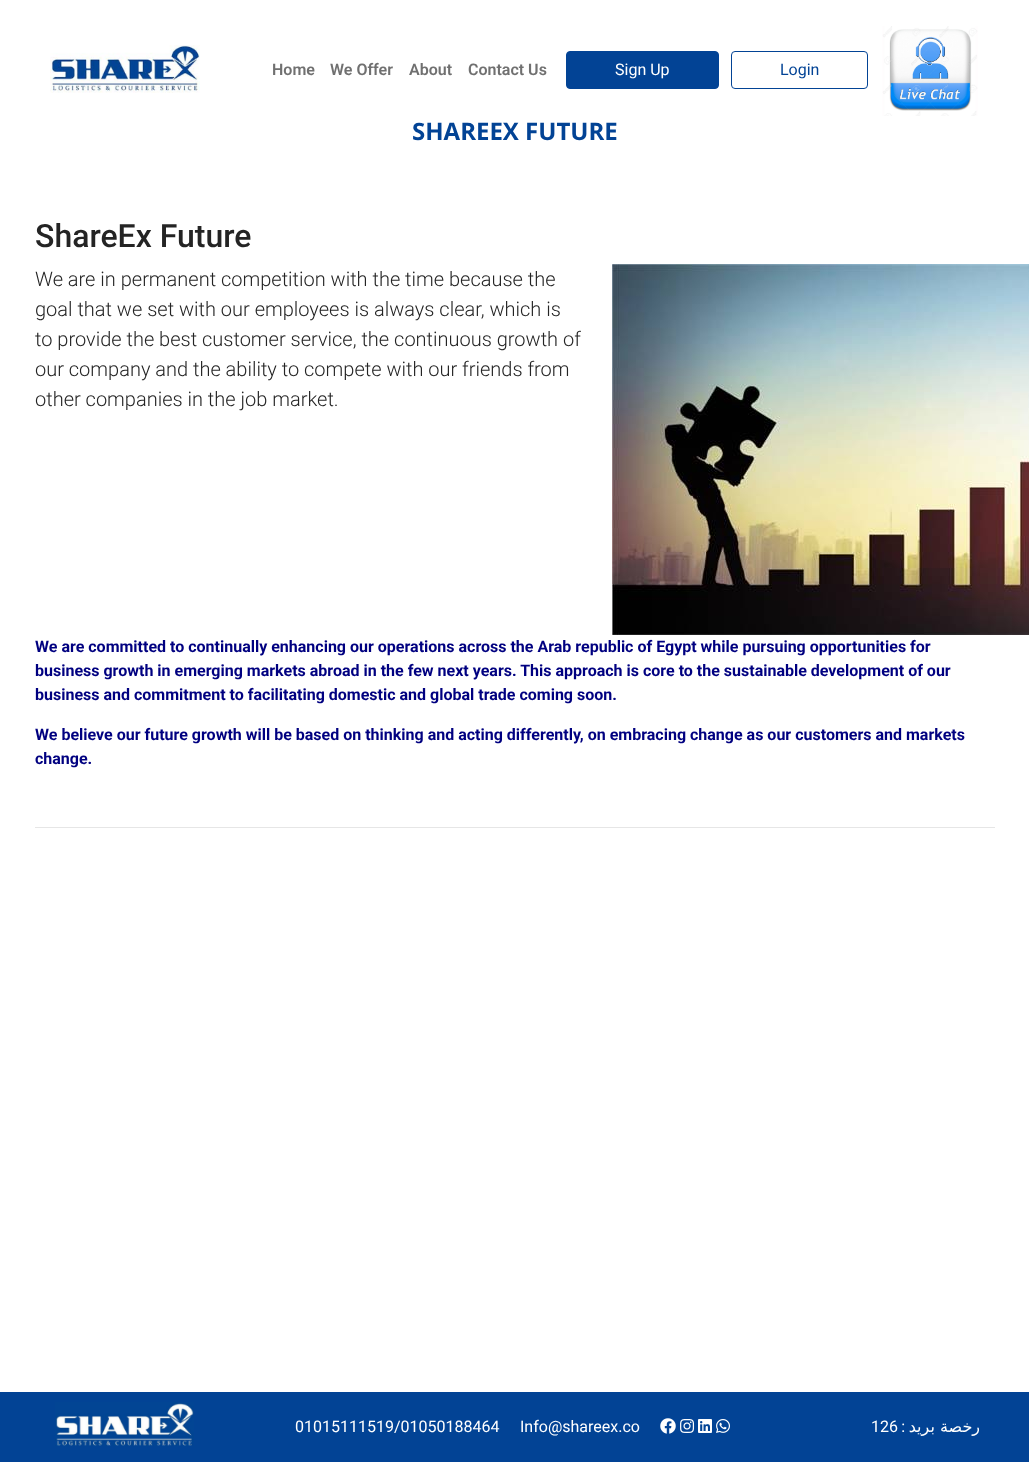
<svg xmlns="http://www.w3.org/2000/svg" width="1029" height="1462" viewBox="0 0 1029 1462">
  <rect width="100%" height="100%" fill="#fff"/>
  <image x="50" y="45" width="150" height="48" href="img/1.png"/>
  <rect x="566.5" y="51.5" width="152" height="37" rx="3.5" fill="#024395" stroke="#024395"/>
  <rect x="731.5" y="51.5" width="136" height="37" rx="3.5" fill="none" stroke="#024395"/>
  <image x="882" y="26" width="96" height="90" href="img/2.png"/>
  <image x="612" y="264" width="417" height="371" href="img/3.png"/>
  <path d="M35 827h960v1H35z" fill="#e6e6e6"/>
  <path d="M0 1392h1029v70H0z" fill="#024395"/>
  <image x="55" y="1402" width="139" height="44" href="img/4.png"/>
  <image x="660" y="1418" width="16" height="16" href="img/5.png"/>
  <image x="680" y="1419" width="15" height="14" href="img/6.png"/>
  <image x="698" y="1419" width="14" height="14" href="img/7.png"/>
  <image x="716" y="1419" width="14" height="14" href="img/8.png"/>
  <g font-family="Roboto" font-size="16" font-weight="600" fill="#707070">
    <text x="272" y="75">Home</text>
    <text x="330" y="75">We Offer</text>
    <text x="409" y="75">About</text>
    <text x="468" y="75">Contact Us</text>
  </g>
  <text x="615" y="75" font-family="Roboto" font-size="16" fill="#fff">Sign Up</text>
  <text x="780" y="75" font-family="Roboto" font-size="16" fill="#024395">Login</text>
  <text x="412" y="140" font-family="Open Sans" font-size="24" font-weight="bold" fill="#024395">SHAREEX FUTURE</text>
  <text x="35" y="247" font-family="Roboto" font-size="32" font-weight="500" fill="#242424">ShareEx Future</text>
  <g font-family="Roboto" font-size="20" font-weight="300" fill="#242424">
    <text x="35" y="286">We are in permanent competition with the time because the</text>
    <text x="35" y="316">goal that we set with our employees is always clear, which is</text>
    <text x="35" y="346">to provide the best customer service, the continuous growth of</text>
    <text x="35" y="376">our company and the ability to compete with our friends from</text>
    <text x="35" y="406">other companies in the job market.</text>
  </g>
  <g font-family="Roboto" font-size="16" font-weight="bold" fill="#000080">
    <text x="35" y="652">We are committed to continually enhancing our operations across the Arab republic of Egypt while pursuing opportunities for</text>
    <text x="35" y="676">business growth in emerging markets abroad in the few next years. This approach is core to the sustainable development of our</text>
    <text x="35" y="700">business and commitment to facilitating domestic and global trade coming soon.</text>
    <text x="35" y="740">We believe our future growth will be based on thinking and acting differently, on embracing change as our customers and markets</text>
    <text x="35" y="764">change.</text>
  </g>
  <g font-family="Roboto" font-size="16" fill="#fff">
    <text x="295" y="1432">01015111519/01050188464</text>
    <text x="520" y="1432">Info@shareex.co</text>
    <text x="871" y="1432">126</text>
  </g>
  <text x="905" y="1432" font-family="Roboto" font-size="16" direction="rtl" fill="#fff">:</text>
  <text x="980" y="1432" font-family="DejaVu Sans" font-size="16" direction="rtl" fill="#fff">رخصة بريد</text>
</svg>
